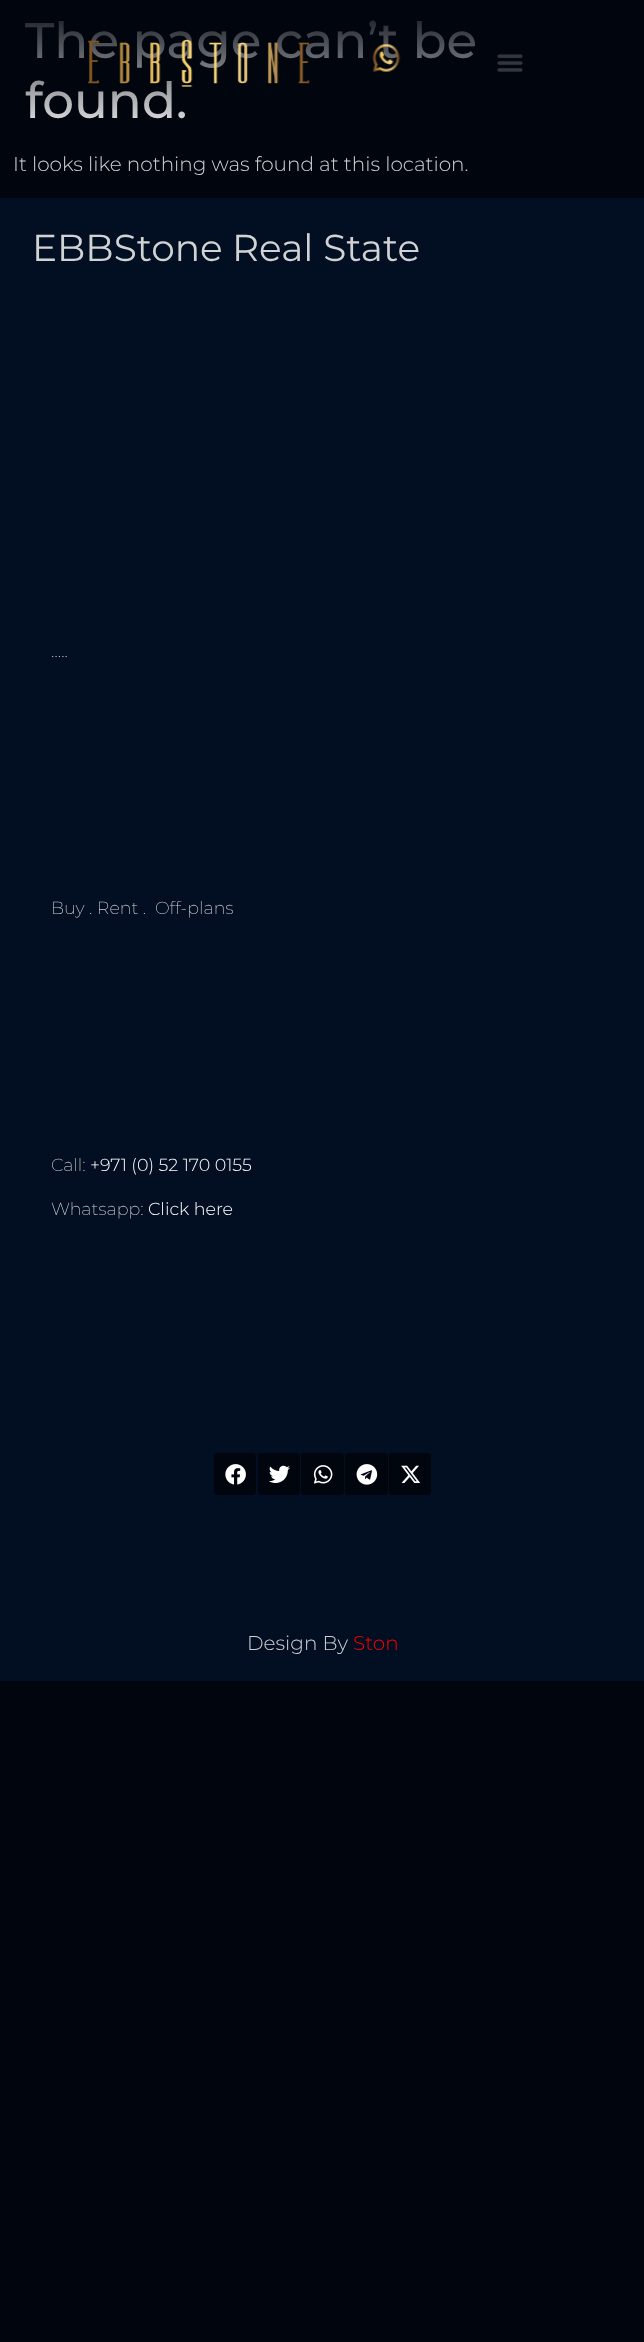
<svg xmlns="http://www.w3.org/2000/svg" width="644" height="2342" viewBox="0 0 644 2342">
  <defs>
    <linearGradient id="g1" gradientUnits="userSpaceOnUse" x1="323" y1="125" x2="323" y2="0"><stop offset="0" stop-color="#000" stop-opacity="0"/><stop offset="0.05" stop-color="#01060e" stop-opacity="0"/><stop offset="1" stop-color="#01060e"/></linearGradient>
  </defs>
  <rect width="100%" height="100%" fill="#01060e"/>
  <image x="497" y="54" width="26" height="18" href="img/3.png"/>
  <path d="M0 198h644v1483H0z" fill="#020e21"/>
  <rect x="214" y="1453" width="42" height="42" rx="4" fill="#01060e"/>
  <image x="225" y="1464" width="21" height="21" href="img/4.png"/>
  <rect x="258" y="1453" width="42" height="42" rx="4" fill="#01060e"/>
  <image x="269" y="1465" width="21" height="18" href="img/5.png"/>
  <rect x="301" y="1453" width="43" height="42" rx="4" fill="#01060e"/>
  <image x="313" y="1465" width="20" height="19" href="img/6.png"/>
  <rect x="345" y="1453" width="43" height="42" rx="4" fill="#01060e"/>
  <image x="356" y="1464" width="22" height="21" href="img/7.png"/>
  <rect x="389" y="1453" width="42" height="42" rx="4" fill="#01060e"/>
  <image x="401" y="1465" width="20" height="18" href="img/8.png"/>
  <g font-family="Montserrat" font-size="50" font-weight="500" fill="#d1d2d4">
    <text x="25" y="58">The page can’t be</text>
    <text x="25" y="118">found.</text>
  </g>
  <text x="13" y="171" font-family="Montserrat" font-size="20" font-weight="300" fill="#d1d2d4">It looks like nothing was found at this location.</text>
  <path d="M25 20h450v96H25z" fill="url(#g1)"/>
  <image x="87" y="39" width="223" height="48" href="img/1.png"/>
  <image x="372" y="43" width="29" height="29" href="img/2.png"/>
  <g font-family="Montserrat" font-size="37.5" fill="#d1d2d4">
    <text x="32" y="261">EBBStone</text>
    <text x="232" y="261">Real State</text>
  </g>
  <g font-family="Montserrat" font-size="17.5" font-weight="200" fill="#d1d2d4">
    <text x="51" y="657">…..</text>
    <text x="51" y="914" xml:space="preserve">Buy . Rent .  Off-plans</text>
    <text x="51" y="1171">Call:</text>
  </g>
  <text x="90" y="1171" font-family="Montserrat" font-size="17.5" font-weight="300" fill="#fff">+971 (0) 52 170 0155</text>
  <text x="51" y="1215" font-family="Montserrat" font-size="17.5" font-weight="200" fill="#d1d2d4">Whatsapp:</text>
  <text x="148" y="1215" font-family="Montserrat" font-size="17.5" font-weight="300" fill="#fff">Click here</text>
  <text x="247" y="1650" font-family="Montserrat" font-size="20" font-weight="300" fill="#d1d2d4">Design By</text>
  <text x="353" y="1650" font-family="Montserrat" font-size="20" font-weight="300" fill="#f00">Ston</text>
</svg>
